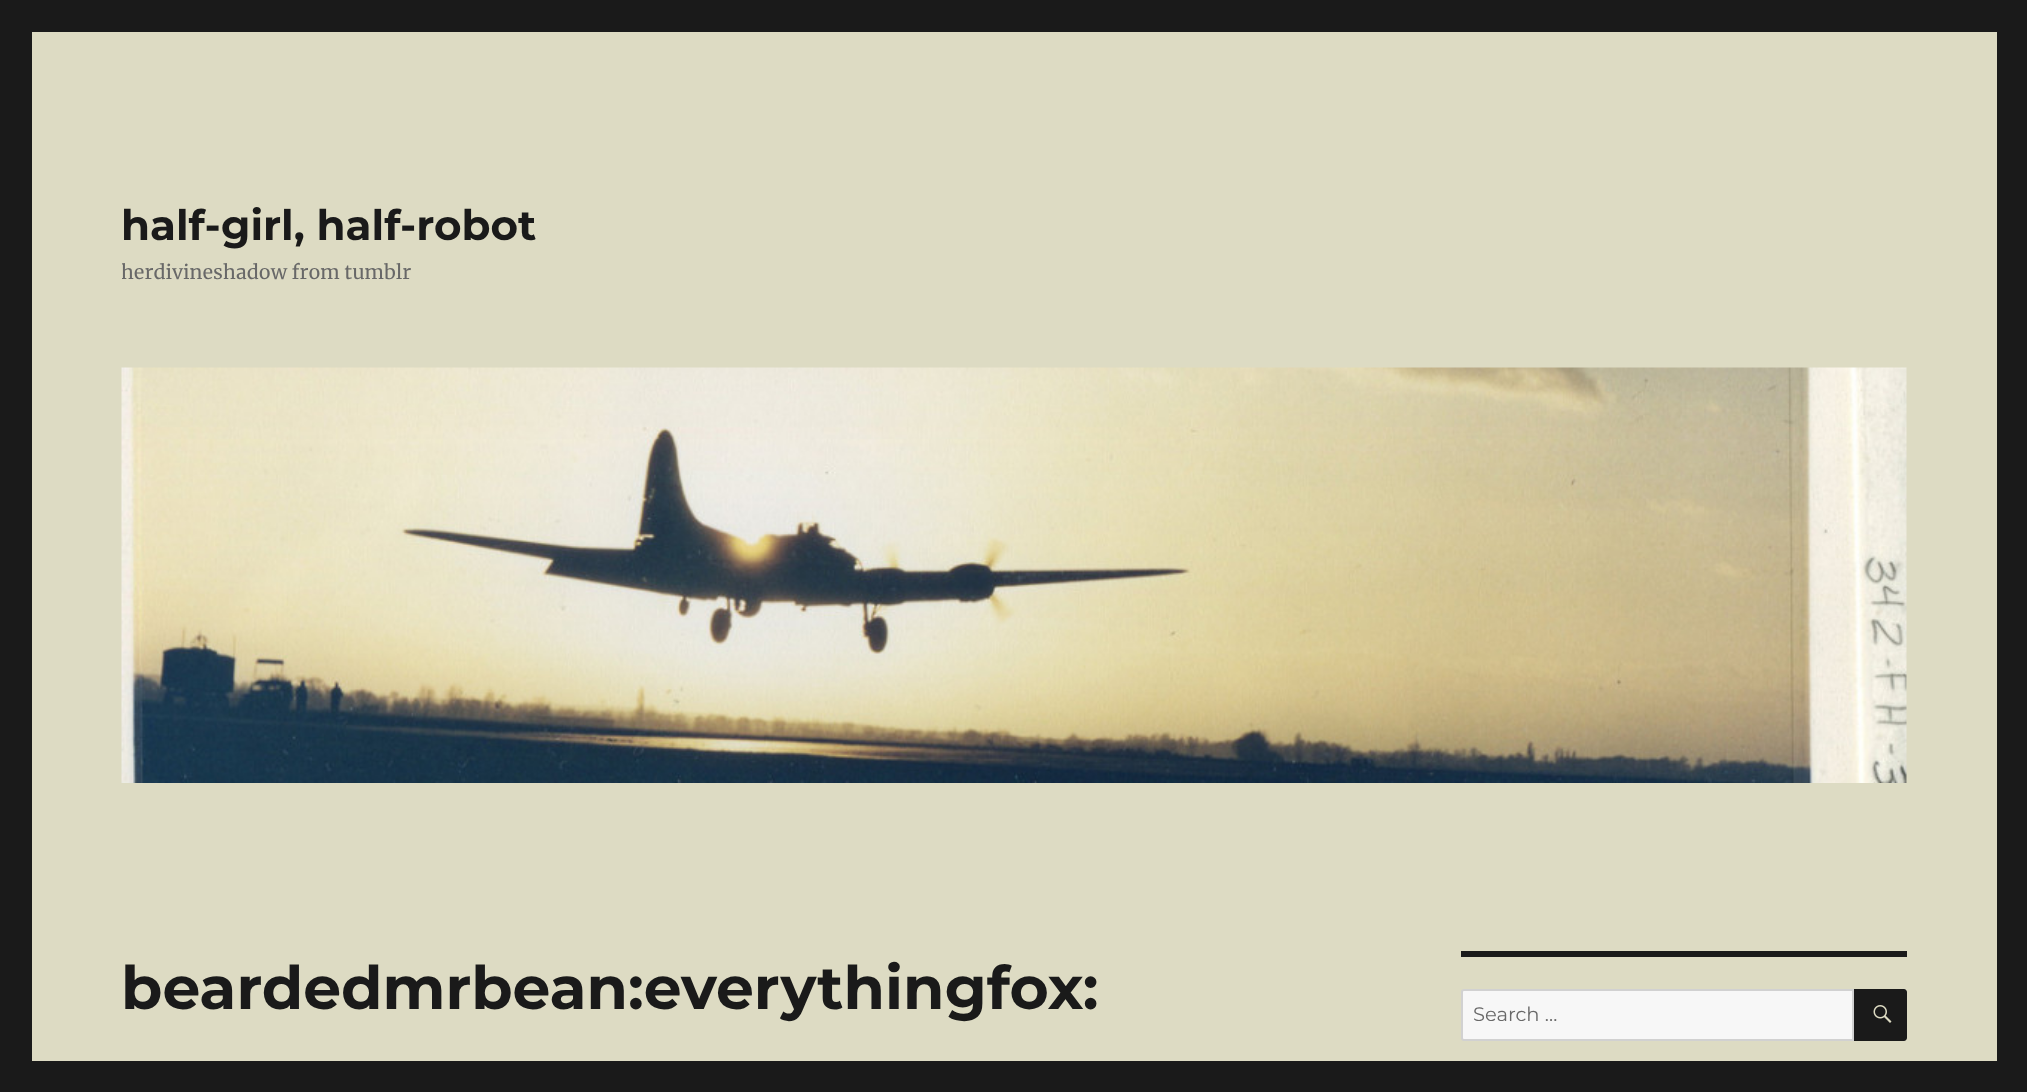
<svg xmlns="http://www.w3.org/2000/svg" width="2027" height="1092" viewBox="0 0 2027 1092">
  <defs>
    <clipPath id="clip1"><path d="M122 200h414v84H122z"/></clipPath>
  </defs>
  <rect width="100%" height="100%" fill="#1a1a1a"/>
  <path d="M32 32h1965v1029H32z" fill="#dddbc3"/>
  <image x="121" y="367" width="1786" height="416" href="img/1.png"/>
  <path d="M1461 951h446v6H1461z" fill="#1a1a1a"/>
  <path d="M1464 990H1853V1040H1464C1463 1040 1462 1039 1462 1038V992C1462 991 1463 990 1464 990Z" fill="#f7f7f7" stroke="#d1d1d1" stroke-width="2"/>
  <path d="M1854 989H1904C1905.5 989 1907 990.5 1907 992V1038C1907 1039.5 1905.5 1041 1904 1041H1854Z" fill="#1a1a1a"/>
  <image x="1873" y="1005" width="19" height="18" href="img/2.png"/>
  <text x="121" y="240" font-family="Montserrat" font-size="42" font-weight="100" fill="#1a1a1a">half-girl, half-robot</text>
  <g clip-path="url(#clip1)">
    <text x="121" y="279" font-family="Merriweather" font-size="19.5" fill="#686868">herdivineshadow from tumblr</text>
  </g>
  <text x="121" y="1009" font-family="Montserrat" font-size="60" font-weight="100" fill="#1a1a1a">beardedmrbean:everythingfox:</text>
  <text x="1473" y="1021" font-family="'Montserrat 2'" font-size="19.5" font-weight="100" fill="#686868">Search …</text>
</svg>
